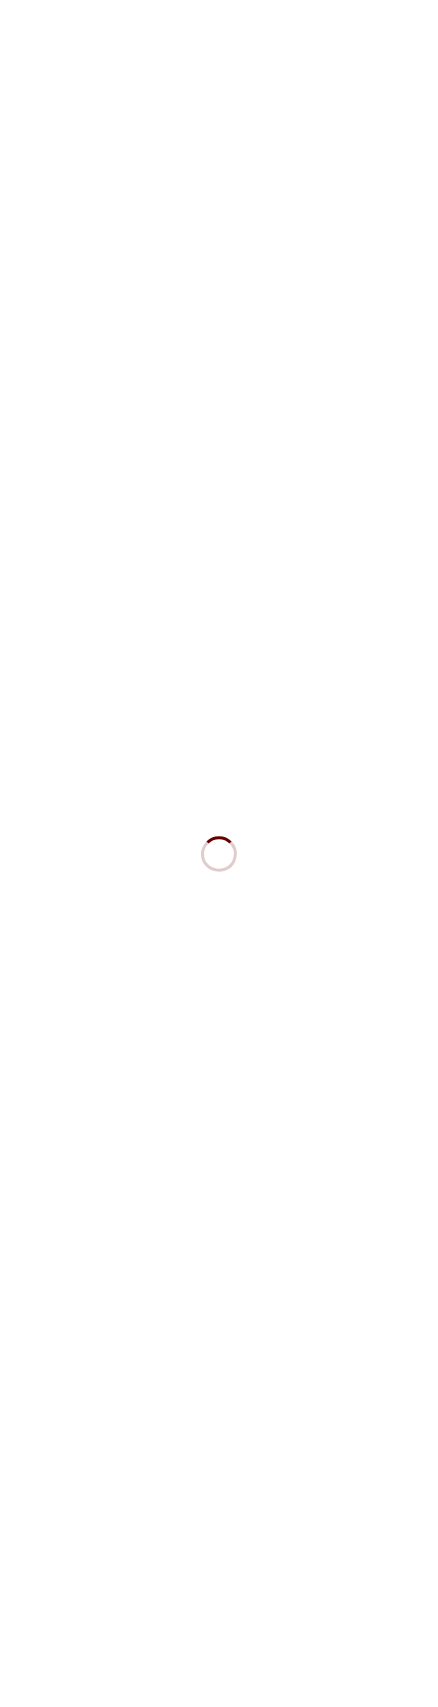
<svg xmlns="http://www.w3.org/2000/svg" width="438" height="1707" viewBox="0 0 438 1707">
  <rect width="100%" height="100%" fill="#fff"/>
  <path d="M207.5 842.5C213.5 836 224.5 836 230.5 842.5" fill="none" stroke="#600" stroke-width="3"/>
  <path d="M230.5 842.5C234.5 846 236.5 852 235 857C231.5 876.5 202.5 873.5 202.5 854C202.5 849.5 204.5 845.5 207.5 842.5" fill="none" stroke="#66000033" stroke-width="3"/>
</svg>
